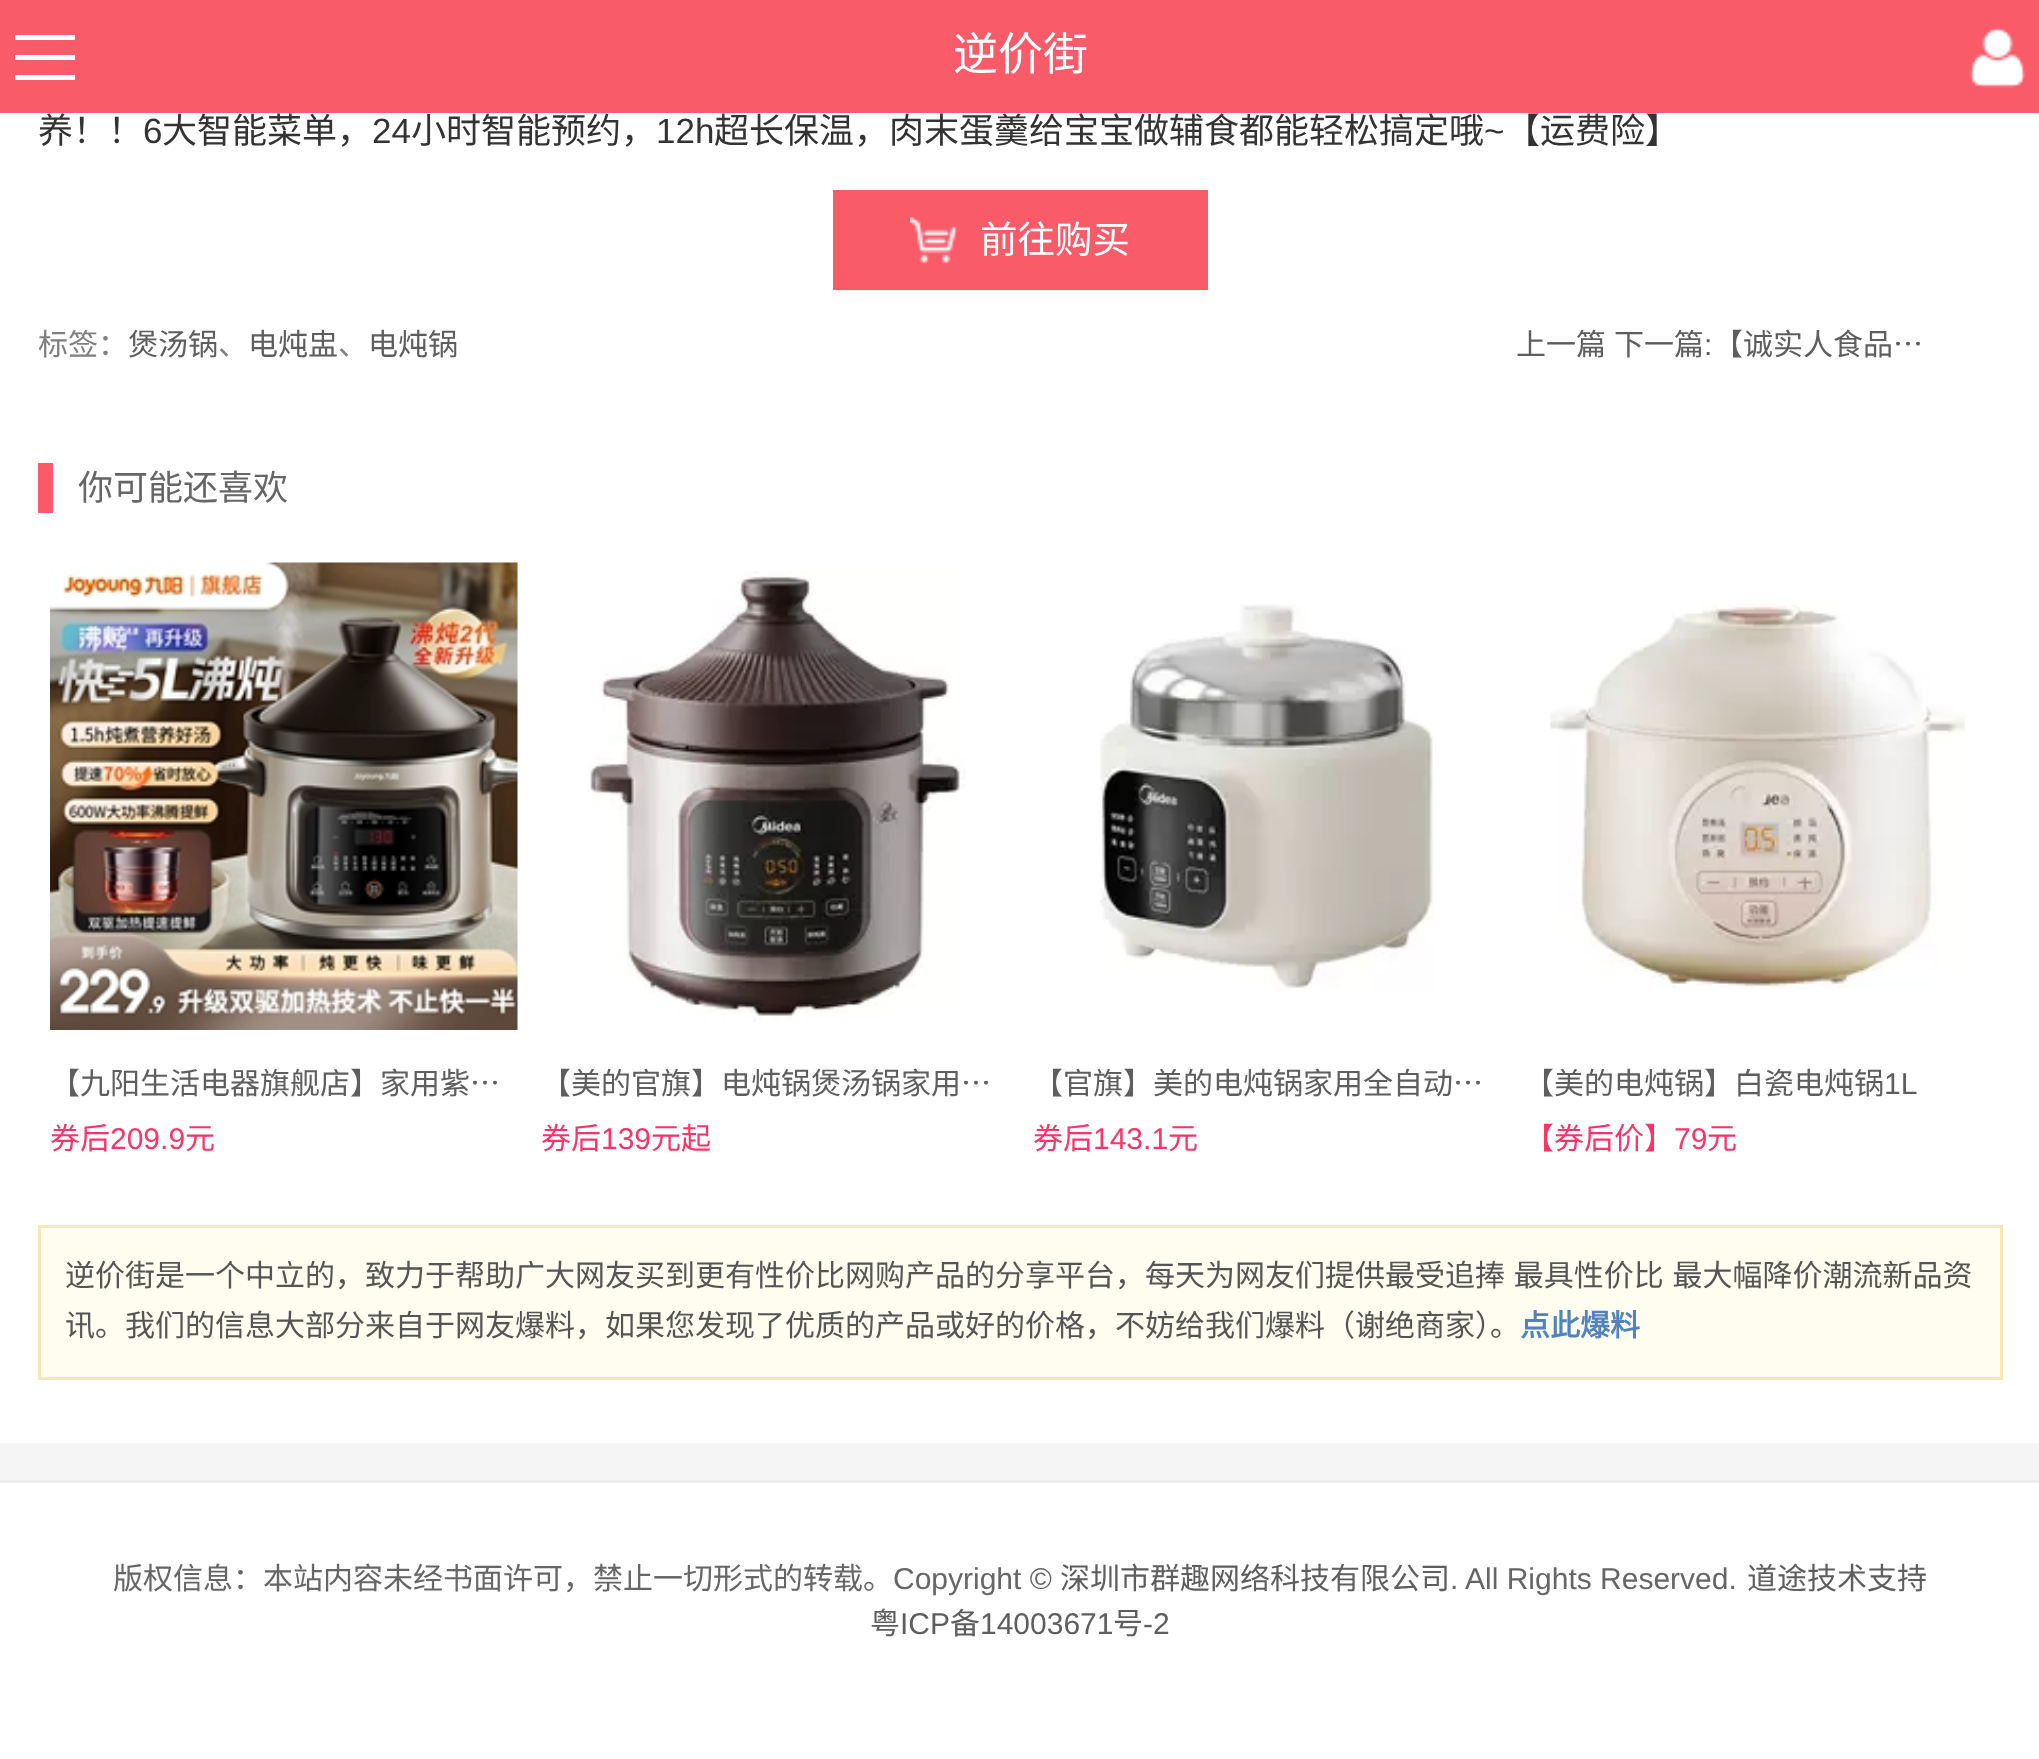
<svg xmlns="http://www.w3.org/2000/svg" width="2039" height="1759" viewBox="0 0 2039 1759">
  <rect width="100%" height="100%" fill="#f5f5f5"/>
  <path d="M0 0h2039v113H0z" fill="#f95b69"/>
  <path d="M15 35h60v5H15z" fill="#fff"/>
  <path d="M15 55h60v5H15z" fill="#fff"/>
  <path d="M15 75h60v5H15z" fill="#fff"/>
  <image x="1969" y="27" width="57" height="61" href="img/1.png"/>
  <path d="M0 113h2039v1330H0z" fill="#fff"/>
  <path d="M833 190h375v100H833z" fill="#f95b69"/>
  <image x="910" y="216" width="48" height="48" href="img/2.png"/>
  <path d="M38 463h15v50H38z" fill="#f95b69"/>
  <image x="50" y="562" width="468" height="468" href="img/3.png"/>
  <image x="587" y="571" width="379" height="451" href="img/4.png"/>
  <image x="1100" y="604" width="335" height="388" href="img/5.png"/>
  <image x="1550" y="604" width="416" height="385" href="img/6.png"/>
  <path d="M39.5 1226.5h1962v152H39.5z" fill="#fffdef" stroke="#f9e7b6" stroke-width="3"/>
  <path d="M0 1483h2039v276H0z" fill="#fff"/>
  <path d="M0 1480h2039v3H0z" fill="#ededed"/>
  <text x="953" y="70" font-family="Noto Sans CJK SC" font-size="45" fill="#fff">逆价街</text>
  <text x="38" y="143" font-family="Noto Sans CJK SC" font-size="35" fill="#333">养！！</text>
  <text x="143" y="143" font-family="Liberation Sans" font-size="35" fill="#333">6</text>
  <text x="162" y="143" font-family="Noto Sans CJK SC" font-size="35" fill="#333">大智能菜单，</text>
  <text x="372" y="143" font-family="Liberation Sans" font-size="35" fill="#333">24</text>
  <text x="411" y="143" font-family="Noto Sans CJK SC" font-size="35" fill="#333">小时智能预约，</text>
  <text x="656" y="143" font-family="Liberation Sans" font-size="35" fill="#333">12h</text>
  <text x="714" y="143" font-family="Noto Sans CJK SC" font-size="35" fill="#333">超长保温，肉末蛋羹给宝宝做辅食都能轻松搞定哦</text>
  <text x="1484" y="143" font-family="Liberation Sans" font-size="35" fill="#333">~</text>
  <text x="1505" y="143" font-family="Noto Sans CJK SC" font-size="35" fill="#333">【运费险】</text>
  <text x="980" y="253" font-family="Noto Sans CJK SC" font-size="37.5" fill="#fff">前往购买</text>
  <text x="38" y="355" font-family="Noto Sans CJK SC" font-size="30" fill="#808080">标签：</text>
  <text x="128" y="355" font-family="Noto Sans CJK SC" font-size="30" fill="#5e5e5e">煲汤锅</text>
  <text x="218" y="355" font-family="Noto Sans CJK SC" font-size="30" fill="#808080">、</text>
  <text x="248" y="355" font-family="Noto Sans CJK SC" font-size="30" fill="#5e5e5e">电炖盅</text>
  <text x="338" y="355" font-family="Noto Sans CJK SC" font-size="30" fill="#808080">、</text>
  <g font-family="Noto Sans CJK SC" font-size="30" fill="#5e5e5e">
    <text x="368" y="355">电炖锅</text>
    <text x="1516" y="355">上一篇</text>
    <text x="1614" y="355">下一篇</text>
  </g>
  <text x="1704" y="355" font-family="Liberation Sans" font-size="30" fill="#5e5e5e">:</text>
  <text x="1713" y="355" font-family="Noto Sans CJK SC" font-size="30" fill="#5e5e5e">【诚实人食品…</text>
  <text x="78" y="500" font-family="Noto Sans CJK SC" font-size="35" fill="#666">你可能还喜欢</text>
  <text x="50" y="1094" font-family="Noto Sans CJK SC" font-size="30" fill="#5e5e5e">【九阳生活电器旗舰店】家用紫…</text>
  <text x="50" y="1149" font-family="Noto Sans CJK SC" font-size="30" fill="#f36">券后</text>
  <text x="110" y="1149" font-family="Liberation Sans" font-size="30" fill="#f36">209.9</text>
  <text x="185" y="1149" font-family="Noto Sans CJK SC" font-size="30" fill="#f36">元</text>
  <text x="541" y="1094" font-family="Noto Sans CJK SC" font-size="30" fill="#5e5e5e">【美的官旗】电炖锅煲汤锅家用…</text>
  <text x="541" y="1149" font-family="Noto Sans CJK SC" font-size="30" fill="#f36">券后</text>
  <text x="601" y="1149" font-family="Liberation Sans" font-size="30" fill="#f36">139</text>
  <text x="651" y="1149" font-family="Noto Sans CJK SC" font-size="30" fill="#f36">元起</text>
  <text x="1033" y="1094" font-family="Noto Sans CJK SC" font-size="30" fill="#5e5e5e">【官旗】美的电炖锅家用全自动…</text>
  <text x="1033" y="1149" font-family="Noto Sans CJK SC" font-size="30" fill="#f36">券后</text>
  <text x="1093" y="1149" font-family="Liberation Sans" font-size="30" fill="#f36">143.1</text>
  <text x="1168" y="1149" font-family="Noto Sans CJK SC" font-size="30" fill="#f36">元</text>
  <text x="1524" y="1094" font-family="Noto Sans CJK SC" font-size="30" fill="#5e5e5e">【美的电炖锅】白瓷电炖锅</text>
  <text x="1884" y="1094" font-family="Liberation Sans" font-size="30" fill="#5e5e5e">1L</text>
  <text x="1524" y="1149" font-family="Noto Sans CJK SC" font-size="30" fill="#f36">【券后价】</text>
  <text x="1674" y="1149" font-family="Liberation Sans" font-size="30" fill="#f36">79</text>
  <text x="1707" y="1149" font-family="Noto Sans CJK SC" font-size="30" fill="#f36">元</text>
  <g font-family="Noto Sans CJK SC" font-size="30" fill="#555">
    <text x="65" y="1286" word-spacing="2">逆价街是一个中立的，致力于帮助广大网友买到更有性价比网购产品的分享平台，每天为网友们提供最受追捧 最具性价比 最大幅降价潮流新品资</text>
    <text x="65" y="1336">讯。我们的信息大部分来自于网友爆料，如果您发现了优质的产品或好的价格，不妨给我们爆料（谢绝商家）。</text>
  </g>
  <text x="1520" y="1336" font-family="Noto Sans CJK SC" font-size="30" font-weight="bold" fill="#5183c0">点此爆料</text>
  <text x="113" y="1589" font-family="Noto Sans CJK SC" font-size="30" fill="#666">版权信息：本站内容未经书面许可，禁止一切形式的转载。</text>
  <text x="893" y="1589" font-family="Liberation Sans" font-size="30" fill="#666">Copyright ©</text>
  <text x="1060" y="1589" font-family="Noto Sans CJK SC" font-size="30" fill="#5e5e5e">深圳市群趣网络科技有限公司</text>
  <text x="1450" y="1589" font-family="Liberation Sans" font-size="30" fill="#666">. All Rights Reserved.</text>
  <g font-family="Noto Sans CJK SC" font-size="30" fill="#5e5e5e">
    <text x="1747" y="1589">道途技术支持</text>
    <text x="870" y="1634">粤</text>
  </g>
  <text x="900" y="1634" font-family="Liberation Sans" font-size="30" fill="#5e5e5e">ICP</text>
  <text x="950" y="1634" font-family="Noto Sans CJK SC" font-size="30" fill="#5e5e5e">备</text>
  <text x="980" y="1634" font-family="Liberation Sans" font-size="30" fill="#5e5e5e">14003671</text>
  <text x="1113" y="1634" font-family="Noto Sans CJK SC" font-size="30" fill="#5e5e5e">号</text>
  <text x="1143" y="1634" font-family="Liberation Sans" font-size="30" fill="#5e5e5e">-2</text>
</svg>
